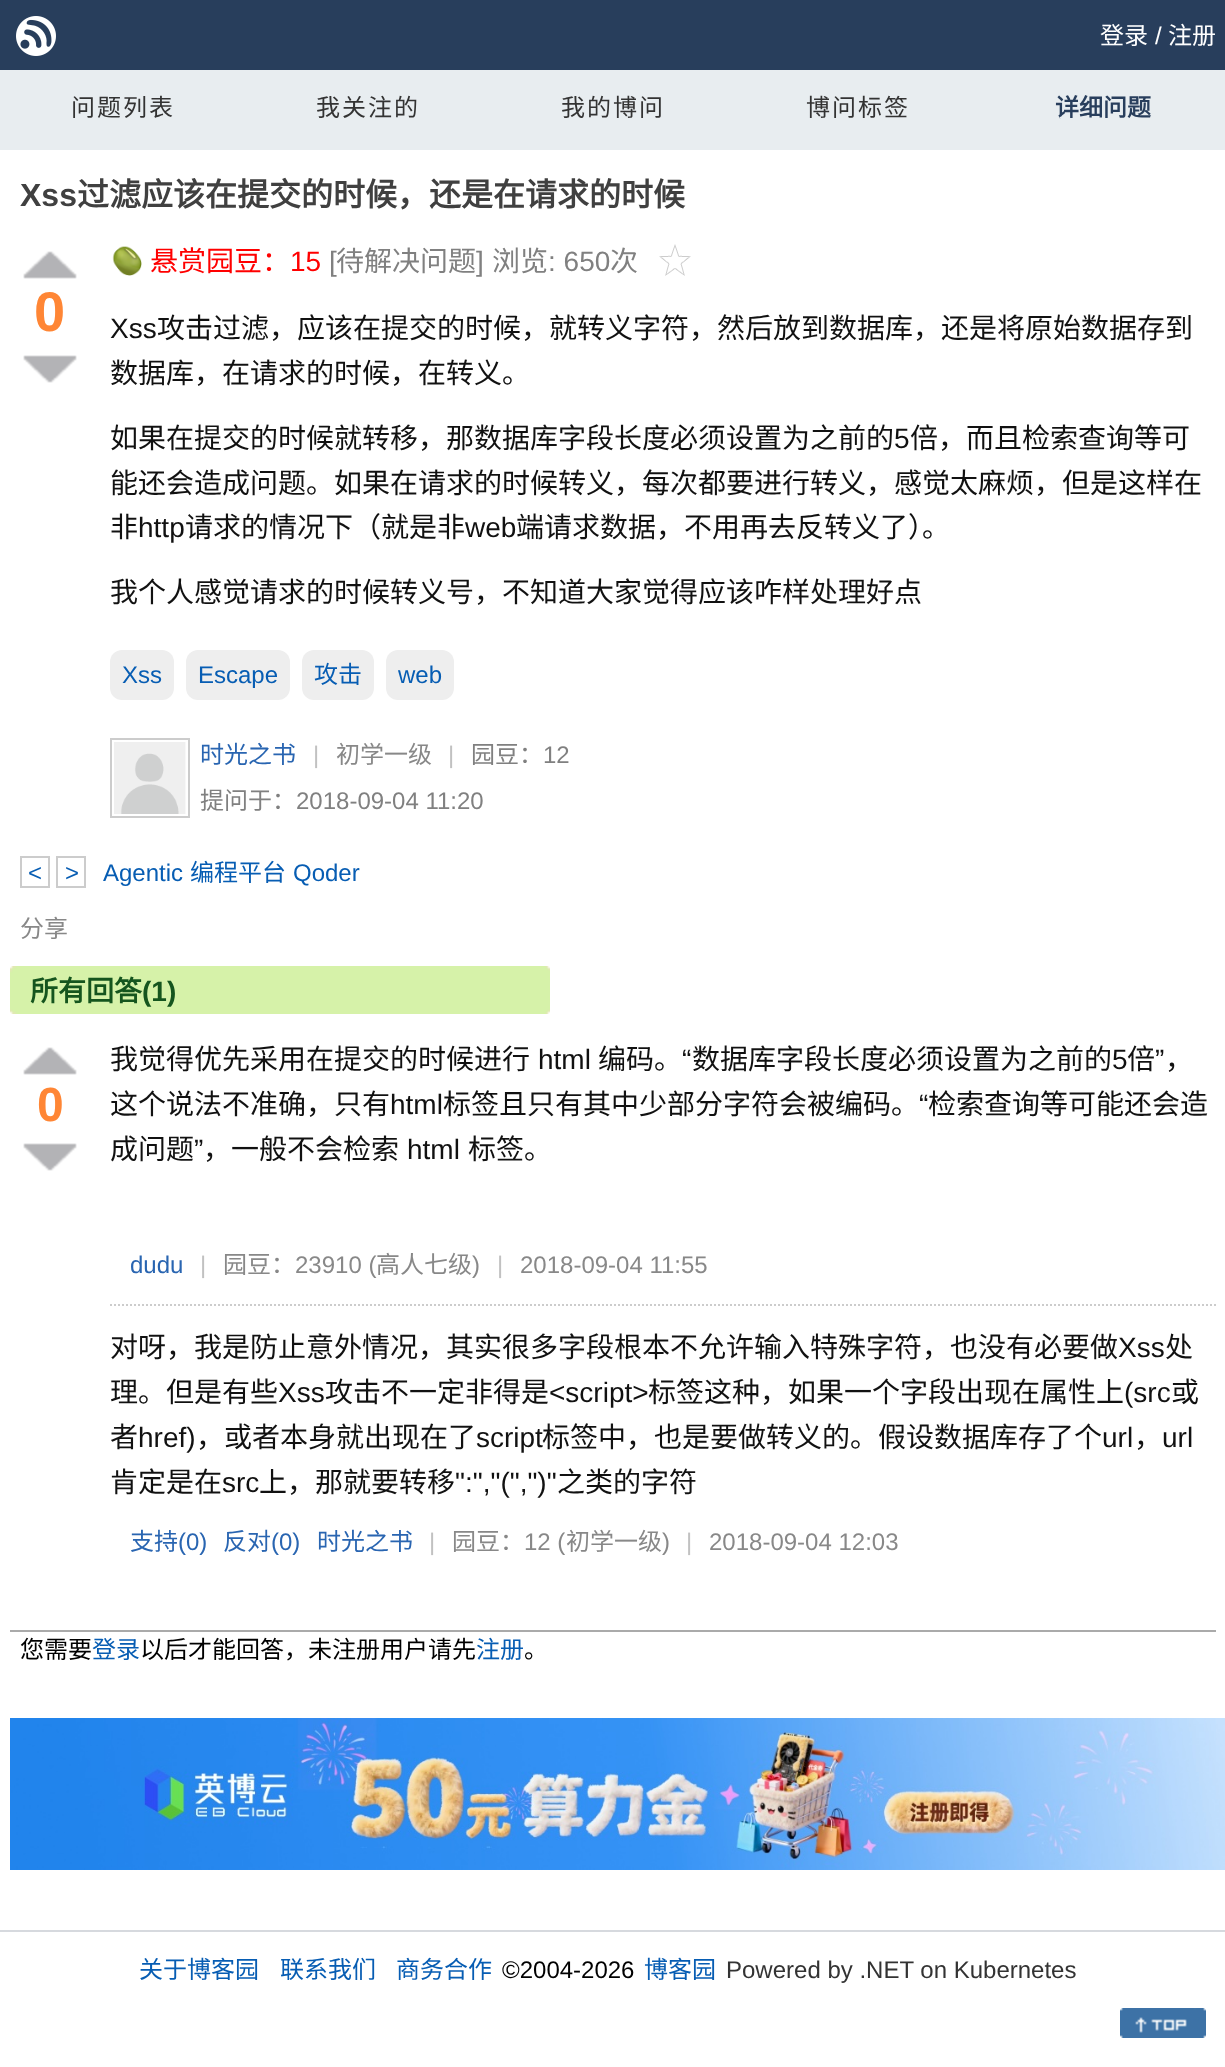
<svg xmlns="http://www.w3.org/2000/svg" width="1225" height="2067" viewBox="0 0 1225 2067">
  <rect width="100%" height="100%" fill="#fff"/>
  <path d="M0 0h1225v70H0z" fill="#283e5c"/>
  <image x="16" y="16" width="40" height="40" href="img/1.png"/>
  <path d="M0 70h1225v80H0z" fill="#e8edf0"/>
  <image x="23" y="251" width="54" height="28" href="img/2.png"/>
  <image x="23" y="355" width="54" height="28" href="img/3.png"/>
  <image x="112" y="246" width="30" height="30" href="img/4.png"/>
  <image x="659" y="244" width="32" height="32" href="img/5.png"/>
  <rect x="110" y="650" width="64" height="50" rx="12" fill="#eee"/>
  <rect x="186" y="650" width="104" height="50" rx="12" fill="#eee"/>
  <rect x="302" y="650" width="72" height="50" rx="12" fill="#eee"/>
  <rect x="386" y="650" width="68" height="50" rx="12" fill="#eee"/>
  <path d="M111 739h78v78H111z" fill="none" stroke="#ccc" stroke-width="2"/>
  <image x="114" y="742" width="72" height="72" href="img/6.png"/>
  <path d="M21 857h28v30H21z" fill="none" stroke="#ccc" stroke-width="2"/>
  <path d="M57 857h28v30H57z" fill="none" stroke="#ccc" stroke-width="2"/>
  <image x="10" y="966" width="540" height="48" href="img/7.png"/>
  <path d="M10 1630h1206v2H10z" fill="#aaa"/>
  <image x="23" y="1047" width="54" height="28" href="img/2.png"/>
  <image x="23" y="1143" width="54" height="28" href="img/3.png"/>
  <path d="M110 1305H1216" fill="none" stroke="#ccc" stroke-width="2" stroke-dasharray="2 2"/>
  <image x="10" y="1718" width="1215" height="152" href="img/8.png"/>
  <path d="M0 1930h1225v2H0z" fill="#d6d9de"/>
  <image x="1120" y="2008" width="86" height="30" href="img/9.png"/>
  <text x="1100" y="44" font-family="Noto Sans CJK SC" font-size="24" fill="#fff">登录</text>
  <text x="1155" y="44" font-family="Liberation Sans" font-size="24" fill="#fff">/</text>
  <text x="1168" y="44" font-family="Noto Sans CJK SC" font-size="24" fill="#fff">注册</text>
  <g font-family="Noto Sans CJK SC" font-size="24" letter-spacing="2" fill="#333">
    <text x="71" y="116">问题列表</text>
    <text x="316" y="116">我关注的</text>
    <text x="561" y="116">我的博问</text>
    <text x="806" y="116">博问标签</text>
  </g>
  <text x="1055" y="116" font-family="Noto Sans CJK SC" font-size="24" font-weight="bold" fill="#283e5c">详细问题</text>
  <text x="20" y="206" font-family="Liberation Sans" font-size="32" font-weight="bold" fill="#404040">Xss</text>
  <text x="77" y="206" font-family="Noto Sans CJK SC" font-size="32" font-weight="bold" fill="#404040">过滤应该在提交的时候，还是在请求的时候</text>
  <text x="34" y="331" font-family="Liberation Sans" font-size="56" font-weight="bold" fill="#ff8635">0</text>
  <text x="150" y="271" font-family="Noto Sans CJK SC" font-size="28" fill="#f00">悬赏园豆：</text>
  <text x="290" y="271" font-family="Liberation Sans" font-size="28" fill="#f00">15</text>
  <text x="329" y="271" font-family="Liberation Sans" font-size="28" fill="#808080">[</text>
  <text x="336" y="271" font-family="Noto Sans CJK SC" font-size="28" fill="#808080">待解决问题</text>
  <text x="476" y="271" font-family="Liberation Sans" font-size="28" fill="#808080">]</text>
  <text x="492" y="271" font-family="Noto Sans CJK SC" font-size="28" fill="#808080">浏览</text>
  <text x="548" y="271" font-family="Liberation Sans" font-size="28" fill="#808080">: 650</text>
  <text x="610" y="271" font-family="Noto Sans CJK SC" font-size="28" fill="#808080">次</text>
  <text x="110" y="338" font-family="Liberation Sans" font-size="28" fill="#111">Xss</text>
  <g font-family="Noto Sans CJK SC" font-size="28" fill="#111">
    <text x="157" y="338">攻击过滤，应该在提交的时候，就转义字符，然后放到数据库，还是将原始数据存到</text>
    <text x="110" y="383">数据库，在请求的时候，在转义。</text>
    <text x="110" y="448">如果在提交的时候就转移，那数据库字段长度必须设置为之前的</text>
  </g>
  <text x="894" y="448" font-family="Liberation Sans" font-size="28" fill="#111">5</text>
  <g font-family="Noto Sans CJK SC" font-size="28" fill="#111">
    <text x="910" y="448">倍，而且检索查询等可</text>
    <text x="110" y="493">能还会造成问题。如果在请求的时候转义，每次都要进行转义，感觉太麻烦，但是这样在</text>
    <text x="110" y="537">非</text>
  </g>
  <text x="138" y="537" font-family="Liberation Sans" font-size="28" fill="#111">http</text>
  <text x="185" y="537" font-family="Noto Sans CJK SC" font-size="28" fill="#111">请求的情况下（就是非</text>
  <text x="465" y="537" font-family="Liberation Sans" font-size="28" fill="#111">web</text>
  <g font-family="Noto Sans CJK SC" font-size="28" fill="#111">
    <text x="516" y="537">端请求数据，不用再去反转义了）。</text>
    <text x="110" y="602">我个人感觉请求的时候转义号，不知道大家觉得应该咋样处理好点</text>
  </g>
  <g font-family="Liberation Sans" font-size="24" fill="#075db3">
    <text x="122" y="683">Xss</text>
    <text x="198" y="683">Escape</text>
  </g>
  <text x="314" y="683" font-family="Noto Sans CJK SC" font-size="24" fill="#075db3">攻击</text>
  <text x="398" y="683" font-family="Liberation Sans" font-size="24" fill="#075db3">web</text>
  <text x="200" y="763" font-family="Noto Sans CJK SC" font-size="24" fill="#2965b1">时光之书</text>
  <text x="313" y="763" font-family="Liberation Sans" font-size="24" fill="#c1c1c1">|</text>
  <text x="336" y="763" font-family="Noto Sans CJK SC" font-size="24" fill="#888">初学一级</text>
  <text x="448" y="763" font-family="Liberation Sans" font-size="24" fill="#c1c1c1">|</text>
  <text x="471" y="763" font-family="Noto Sans CJK SC" font-size="24" fill="#808080">园豆：</text>
  <text x="543" y="763" font-family="Liberation Sans" font-size="24" fill="#808080">12</text>
  <text x="200" y="809" font-family="Noto Sans CJK SC" font-size="24" fill="#808080">提问于：</text>
  <text x="296" y="809" font-family="Liberation Sans" font-size="24" fill="#808080">2018-09-04 11:20</text>
  <g font-family="Liberation Sans" font-size="24" fill="#075db3">
    <text x="28" y="881">&lt;</text>
    <text x="65" y="881">&gt;</text>
    <text x="103" y="881">Agentic</text>
  </g>
  <text x="190" y="881" font-family="Noto Sans CJK SC" font-size="24" fill="#075db3">编程平台</text>
  <text x="293" y="881" font-family="Liberation Sans" font-size="24" fill="#075db3">Qoder</text>
  <text x="20" y="937" font-family="Noto Sans CJK SC" font-size="24" fill="#888">分享</text>
  <text x="30" y="1001" font-family="Noto Sans CJK SC" font-size="28" font-weight="bold" fill="#15551e">所有回答</text>
  <text x="142" y="1001" font-family="Liberation Sans" font-size="28" font-weight="bold" fill="#15551e">(1)</text>
  <text x="37" y="1121" font-family="Liberation Sans" font-size="48" font-weight="bold" fill="#ff8635">0</text>
  <text x="110" y="1069" font-family="Noto Sans CJK SC" font-size="28" fill="#111">我觉得优先采用在提交的时候进行</text>
  <text x="538" y="1069" font-family="Liberation Sans" font-size="28" fill="#111">html</text>
  <text x="598" y="1069" font-family="Noto Sans CJK SC" font-size="28" fill="#111">编码。</text>
  <text x="682" y="1069" font-family="Liberation Sans" font-size="28" fill="#111">“</text>
  <text x="692" y="1069" font-family="Noto Sans CJK SC" font-size="28" fill="#111">数据库字段长度必须设置为之前的</text>
  <text x="1112" y="1069" font-family="Liberation Sans" font-size="28" fill="#111">5</text>
  <text x="1127" y="1069" font-family="Noto Sans CJK SC" font-size="28" fill="#111">倍</text>
  <text x="1155" y="1069" font-family="Liberation Sans" font-size="28" fill="#111">”</text>
  <g font-family="Noto Sans CJK SC" font-size="28" fill="#111">
    <text x="1165" y="1069">，</text>
    <text x="110" y="1114">这个说法不准确，只有</text>
  </g>
  <text x="390" y="1114" font-family="Liberation Sans" font-size="28" fill="#111">html</text>
  <text x="443" y="1114" font-family="Noto Sans CJK SC" font-size="28" fill="#111">标签且只有其中少部分字符会被编码。</text>
  <text x="919" y="1114" font-family="Liberation Sans" font-size="28" fill="#111">“</text>
  <g font-family="Noto Sans CJK SC" font-size="28" fill="#111">
    <text x="928" y="1114">检索查询等可能还会造</text>
    <text x="110" y="1159">成问题</text>
  </g>
  <text x="194" y="1159" font-family="Liberation Sans" font-size="28" fill="#111">”</text>
  <text x="203" y="1159" font-family="Noto Sans CJK SC" font-size="28" fill="#111">，一般不会检索</text>
  <text x="407" y="1159" font-family="Liberation Sans" font-size="28" fill="#111">html</text>
  <text x="468" y="1159" font-family="Noto Sans CJK SC" font-size="28" fill="#111">标签。</text>
  <text x="130" y="1273" font-family="Liberation Sans" font-size="24" fill="#2965b1">dudu</text>
  <text x="200" y="1273" font-family="Liberation Sans" font-size="24" fill="#c1c1c1">|</text>
  <text x="223" y="1273" font-family="Noto Sans CJK SC" font-size="24" fill="#888">园豆：</text>
  <text x="295" y="1273" font-family="Liberation Sans" font-size="24" fill="#888">23910 (</text>
  <text x="376" y="1273" font-family="Noto Sans CJK SC" font-size="24" fill="#888">高人七级</text>
  <text x="472" y="1273" font-family="Liberation Sans" font-size="24" fill="#888">)</text>
  <text x="497" y="1273" font-family="Liberation Sans" font-size="24" fill="#c1c1c1">|</text>
  <text x="520" y="1273" font-family="Liberation Sans" font-size="24" fill="#888">2018-09-04 11:55</text>
  <text x="110" y="1357" font-family="Noto Sans CJK SC" font-size="28" fill="#111">对呀，我是防止意外情况，其实很多字段根本不允许输入特殊字符，也没有必要做</text>
  <text x="1118" y="1357" font-family="Liberation Sans" font-size="28" fill="#111">Xss</text>
  <g font-family="Noto Sans CJK SC" font-size="28" fill="#111">
    <text x="1165" y="1357">处</text>
    <text x="110" y="1402">理。但是有些</text>
  </g>
  <text x="278" y="1402" font-family="Liberation Sans" font-size="28" fill="#111">Xss</text>
  <text x="325" y="1402" font-family="Noto Sans CJK SC" font-size="28" fill="#111">攻击不一定非得是</text>
  <text x="549" y="1402" font-family="Liberation Sans" font-size="28" fill="#111">&lt;script&gt;</text>
  <text x="648" y="1402" font-family="Noto Sans CJK SC" font-size="28" fill="#111">标签这种，如果一个字段出现在属性上</text>
  <text x="1124" y="1402" font-family="Liberation Sans" font-size="28" fill="#111">(src</text>
  <g font-family="Noto Sans CJK SC" font-size="28" fill="#111">
    <text x="1171" y="1402">或</text>
    <text x="110" y="1447">者</text>
  </g>
  <text x="138" y="1447" font-family="Liberation Sans" font-size="28" fill="#111">href)</text>
  <text x="196" y="1447" font-family="Noto Sans CJK SC" font-size="28" fill="#111">，或者本身就出现在了</text>
  <text x="476" y="1447" font-family="Liberation Sans" font-size="28" fill="#111">script</text>
  <text x="542" y="1447" font-family="Noto Sans CJK SC" font-size="28" fill="#111">标签中，也是要做转义的。假设数据库存了个</text>
  <text x="1102" y="1447" font-family="Liberation Sans" font-size="28" fill="#111">url</text>
  <text x="1134" y="1447" font-family="Noto Sans CJK SC" font-size="28" fill="#111">，</text>
  <text x="1162" y="1447" font-family="Liberation Sans" font-size="28" fill="#111">url</text>
  <text x="110" y="1492" font-family="Noto Sans CJK SC" font-size="28" fill="#111">肯定是在</text>
  <text x="222" y="1492" font-family="Liberation Sans" font-size="28" fill="#111">src</text>
  <text x="259" y="1492" font-family="Noto Sans CJK SC" font-size="28" fill="#111">上，那就要转移</text>
  <text x="455" y="1492" font-family="Liberation Sans" font-size="28" fill="#111">":","(",")"</text>
  <text x="557" y="1492" font-family="Noto Sans CJK SC" font-size="28" fill="#111">之类的字符</text>
  <text x="130" y="1550" font-family="Noto Sans CJK SC" font-size="24" fill="#2965b1">支持</text>
  <text x="178" y="1550" font-family="Liberation Sans" font-size="24" fill="#2965b1">(0)</text>
  <text x="223" y="1550" font-family="Noto Sans CJK SC" font-size="24" fill="#2965b1">反对</text>
  <text x="271" y="1550" font-family="Liberation Sans" font-size="24" fill="#2965b1">(0)</text>
  <text x="317" y="1550" font-family="Noto Sans CJK SC" font-size="24" fill="#2965b1">时光之书</text>
  <text x="429" y="1550" font-family="Liberation Sans" font-size="24" fill="#c1c1c1">|</text>
  <text x="452" y="1550" font-family="Noto Sans CJK SC" font-size="24" fill="#888">园豆：</text>
  <text x="524" y="1550" font-family="Liberation Sans" font-size="24" fill="#888">12 (</text>
  <text x="566" y="1550" font-family="Noto Sans CJK SC" font-size="24" fill="#888">初学一级</text>
  <text x="662" y="1550" font-family="Liberation Sans" font-size="24" fill="#888">)</text>
  <text x="686" y="1550" font-family="Liberation Sans" font-size="24" fill="#c1c1c1">|</text>
  <text x="709" y="1550" font-family="Liberation Sans" font-size="24" fill="#888">2018-09-04 12:03</text>
  <text x="20" y="1658" font-family="Noto Sans CJK SC" font-size="24" fill="#000">您需要</text>
  <text x="92" y="1658" font-family="Noto Sans CJK SC" font-size="24" fill="#075db3">登录</text>
  <text x="140" y="1658" font-family="Noto Sans CJK SC" font-size="24" fill="#000">以后才能回答，未注册用户请先</text>
  <text x="476" y="1658" font-family="Noto Sans CJK SC" font-size="24" fill="#075db3">注册</text>
  <text x="524" y="1658" font-family="Noto Sans CJK SC" font-size="24" fill="#000">。</text>
  <g font-family="Noto Sans CJK SC" font-size="24" fill="#075db3">
    <text x="139" y="1978">关于博客园</text>
    <text x="280" y="1978">联系我们</text>
    <text x="396" y="1978">商务合作</text>
  </g>
  <text x="502" y="1978" font-family="Liberation Sans" font-size="24" fill="#000">©2004-2026</text>
  <text x="644" y="1978" font-family="Noto Sans CJK SC" font-size="24" fill="#075db3">博客园</text>
  <text x="726" y="1978" font-family="Liberation Sans" font-size="24" fill="#333">Powered by .NET on Kubernetes</text>
</svg>
